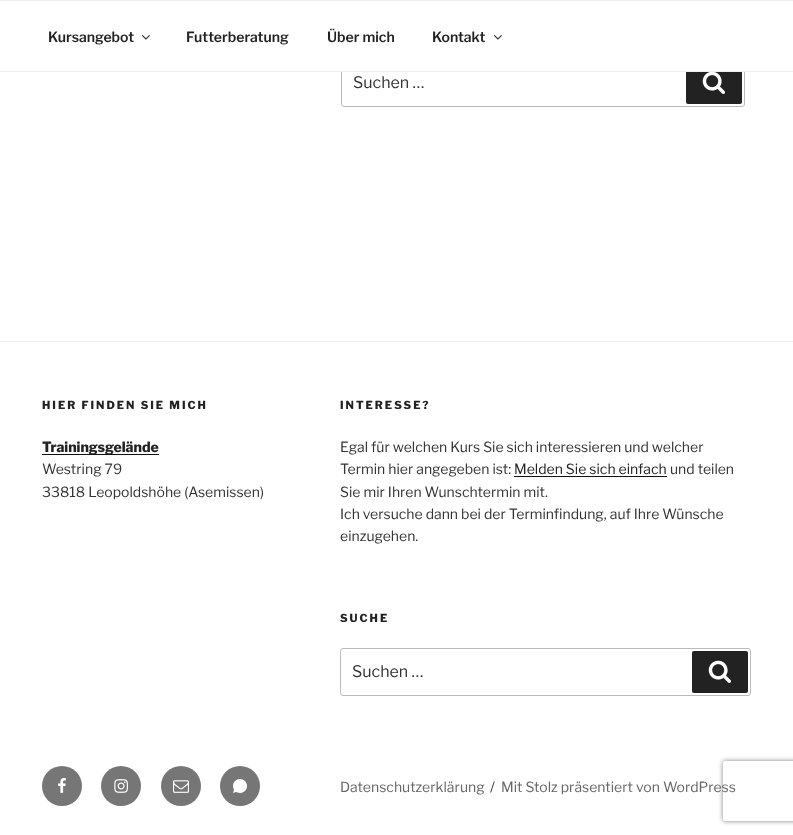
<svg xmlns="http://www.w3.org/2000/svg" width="793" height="835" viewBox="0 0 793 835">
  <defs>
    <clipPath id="clip1"><path d="M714 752H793V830H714ZM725 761H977C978 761 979 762 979 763V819C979 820 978 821 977 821H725C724 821 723 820 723 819V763C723 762 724 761 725 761Z" clip-rule="evenodd"/></clipPath>
  </defs>
  <rect width="100%" height="100%" fill="#fff"/>
  <rect x="341.5" y="59.5" width="403" height="47" rx="2.5" fill="none" stroke="#bbb"/>
  <rect x="686" y="62" width="56" height="42" rx="2" fill="#222"/>
  <path d="M341 59h404v12H341z" fill="#fff"/>
  <path d="M0 0h793v1H0z" fill="#eee"/>
  <path d="M0 71h793v1H0z" fill="#eee"/>
  <image x="142" y="35" width="8" height="5" href="img/1.png"/>
  <image x="494" y="35" width="8" height="5" href="img/1.png"/>
  <image x="702" y="72" width="23" height="22" href="img/2.png"/>
  <path d="M0 341h793v1H0z" fill="#eee"/>
  <path d="M42 454h117v1H42z" fill="#0f0f0f"/>
  <path d="M514 476h153v1H514z" fill="#0f0f0f"/>
  <rect x="340.5" y="648.5" width="410" height="47" rx="2.5" fill="none" stroke="#bbb"/>
  <rect x="692" y="651" width="56" height="42" rx="2" fill="#222"/>
  <image x="708" y="660" width="23" height="23" href="img/3.png"/>
  <circle cx="62" cy="786" r="20" fill="#767676"/>
  <image x="58" y="778" width="8" height="15" href="img/4.png"/>
  <circle cx="121" cy="786" r="20" fill="#767676"/>
  <image x="114" y="779" width="14" height="14" href="img/5.png"/>
  <circle cx="181" cy="786" r="20" fill="#767676"/>
  <image x="173" y="780" width="16" height="13" href="img/6.png"/>
  <circle cx="240" cy="786" r="20" fill="#767676"/>
  <image x="233" y="779" width="14" height="14" href="img/7.png"/>
  <g clip-path="url(#clip1)">
    <rect x="723" y="761" width="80" height="60" rx="2" fill="#808080" filter="blur(2.5px)"/>
  </g>
  <g font-family="'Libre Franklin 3'" font-size="14" font-weight="100" fill="#222">
    <text x="48" y="42">Kursangebot</text>
    <text x="186" y="42">Futterberatung</text>
    <text x="327" y="42">Über mich</text>
    <text x="432" y="42">Kontakt</text>
  </g>
  <text x="353" y="88" font-family="'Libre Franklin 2'" font-size="16" font-weight="100" fill="#333">Suchen …</text>
  <text x="42" y="409" font-family="Libre Franklin" font-size="11" font-weight="100" letter-spacing="2" fill="#222">HIER FINDEN SIE MICH</text>
  <text x="42" y="452" font-family="Libre Franklin" font-size="14" font-weight="100" fill="#222">Trainingsgelände</text>
  <g font-family="'Libre Franklin 2'" font-size="14" font-weight="100" fill="#333">
    <text x="42" y="474">Westring 79</text>
    <text x="42" y="497">33818 Leopoldshöhe (Asemissen)</text>
  </g>
  <text x="340" y="409" font-family="Libre Franklin" font-size="11" font-weight="100" letter-spacing="2" fill="#222">INTERESSE?</text>
  <g font-family="'Libre Franklin 2'" font-size="14" font-weight="100" fill="#333">
    <text x="340" y="452">Egal für welchen Kurs Sie sich interessieren und welcher</text>
    <text x="340" y="474">Termin hier angegeben ist:</text>
  </g>
  <text x="514" y="474" font-family="'Libre Franklin 2'" font-size="14" font-weight="100" fill="#222">Melden Sie sich einfach</text>
  <g font-family="'Libre Franklin 2'" font-size="14" font-weight="100" fill="#333">
    <text x="670" y="474">und teilen</text>
    <text x="340" y="497">Sie mir Ihren Wunschtermin mit.</text>
    <text x="340" y="519">Ich versuche dann bei der Terminfindung, auf Ihre Wünsche</text>
    <text x="340" y="541">einzugehen.</text>
  </g>
  <text x="340" y="622" font-family="Libre Franklin" font-size="11" font-weight="100" letter-spacing="2" fill="#222">SUCHE</text>
  <text x="352" y="677" font-family="'Libre Franklin 2'" font-size="16" font-weight="100" fill="#333">Suchen …</text>
  <text x="340" y="792" font-family="'Libre Franklin 2'" font-size="14" font-weight="100" fill="#666">Datenschutzerklärung</text>
  <text x="490" y="792" font-family="'Libre Franklin 2'" font-size="14" font-weight="100" fill="#333">/</text>
  <text x="501" y="792" font-family="'Libre Franklin 2'" font-size="14" font-weight="100" fill="#666">Mit Stolz präsentiert von WordPress</text>
</svg>
